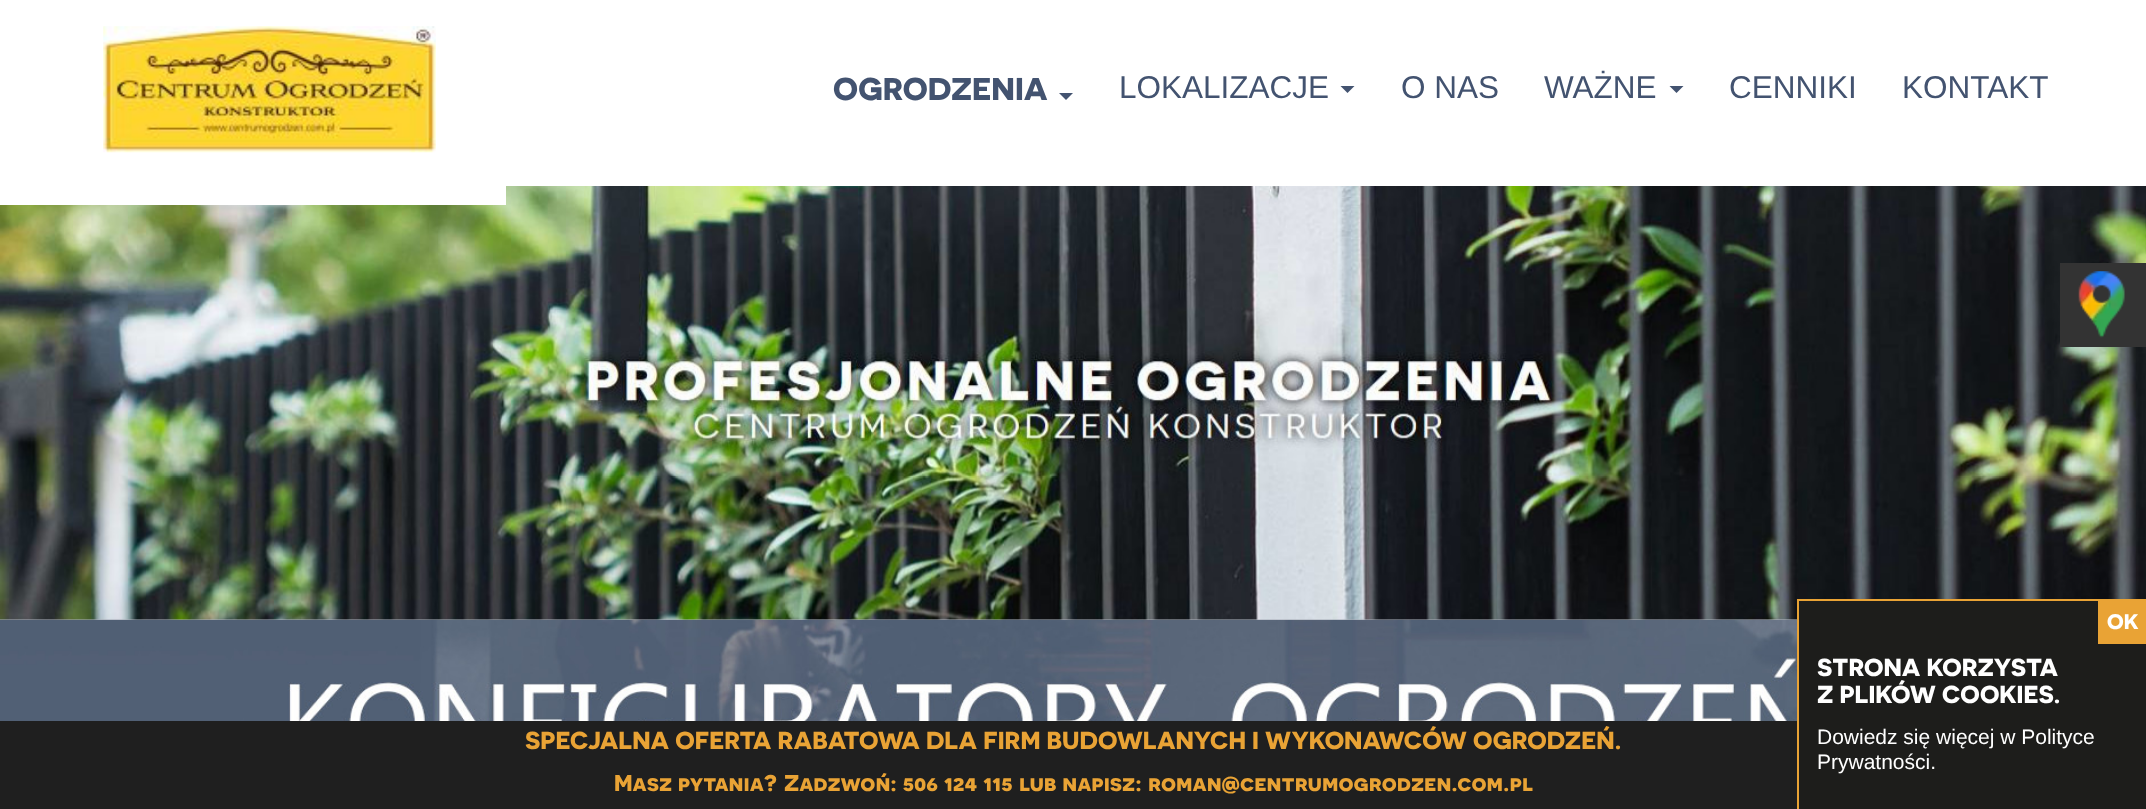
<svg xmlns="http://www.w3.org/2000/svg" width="2146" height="809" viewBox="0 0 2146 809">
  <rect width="100%" height="100%" fill="#fff"/>
  <image x="103" y="26" width="333" height="127" href="img/1.png"/>
  <image x="0" y="619" width="1797" height="102" href="img/3.png"/>
  <image x="0" y="186" width="2146" height="434" href="img/2.png"/>
  <path d="M0 186h506v19H0z" fill="#fff"/>
  <path d="M1059 93H1073L1066 100Z" fill="#435370"/>
  <path d="M1340.5 86H1354.5L1347.5 93Z" fill="#435370"/>
  <path d="M1669.5 86H1683.5L1676.5 93Z" fill="#435370"/>
  <path d="M2060 263h86v84H2060z" fill="#333"/>
  <image x="2078" y="271" width="47" height="67" href="img/4.png"/>
  <path d="M0 721h1797v88H0z" fill="#1f1f1f"/>
  <path d="M1799 601h347v208H1799z" fill="#1d1d1b"/>
  <path d="M1797 599h349v2H1797z" fill="#e9a335"/>
  <path d="M1797 599h2v210H1797z" fill="#e9a335"/>
  <path d="M2098 601h48v43H2098z" fill="#e9a335"/>
  <text x="833" y="100" font-family="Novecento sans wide" font-size="31.5" font-weight="bold" fill="#435370">OGRODZENIA</text>
  <g font-family="Liberation Sans" font-size="31.5" fill="#435370">
    <text x="1119" y="98">LOKALIZACJE</text>
    <text x="1401" y="98">O NAS</text>
    <text x="1544" y="98">WAŻNE</text>
    <text x="1729" y="98">CENNIKI</text>
    <text x="1902" y="98">KONTAKT</text>
  </g>
  <text x="525" y="749" font-family="Novecento sans wide" font-size="24.5" font-weight="bold" fill="#e9a335">SPECJALNA OFERTA RABATOWA DLA FIRM BUDOWLANYCH I WYKONAWCÓW OGRODZEŃ.</text>
  <g font-family="Novecento sans wide" font-size="22.75" font-weight="bold" fill="#e9a335">
    <text x="614" y="791">Masz pytania?</text>
    <text x="784" y="791">Zadzwoń: 506 124 115</text>
    <text x="1019" y="791">lub napisz:</text>
    <text x="1148" y="791">roman@centrumogrodzen.com.pl</text>
  </g>
  <text x="2107" y="629" font-family="Novecento sans wide" font-size="21" font-weight="bold" fill="#fff">OK</text>
  <g font-family="Novecento sans wide" font-size="24.5" font-weight="bold" fill="#fff">
    <text x="1817" y="676">STRONA KORZYSTA</text>
    <text x="1817" y="703">Z PLIKÓW COOKIES.</text>
  </g>
  <g font-family="Liberation Sans" font-size="21" fill="#fff">
    <text x="1817" y="744">Dowiedz się więcej w Polityce</text>
    <text x="1817" y="769">Prywatności.</text>
  </g>
</svg>
